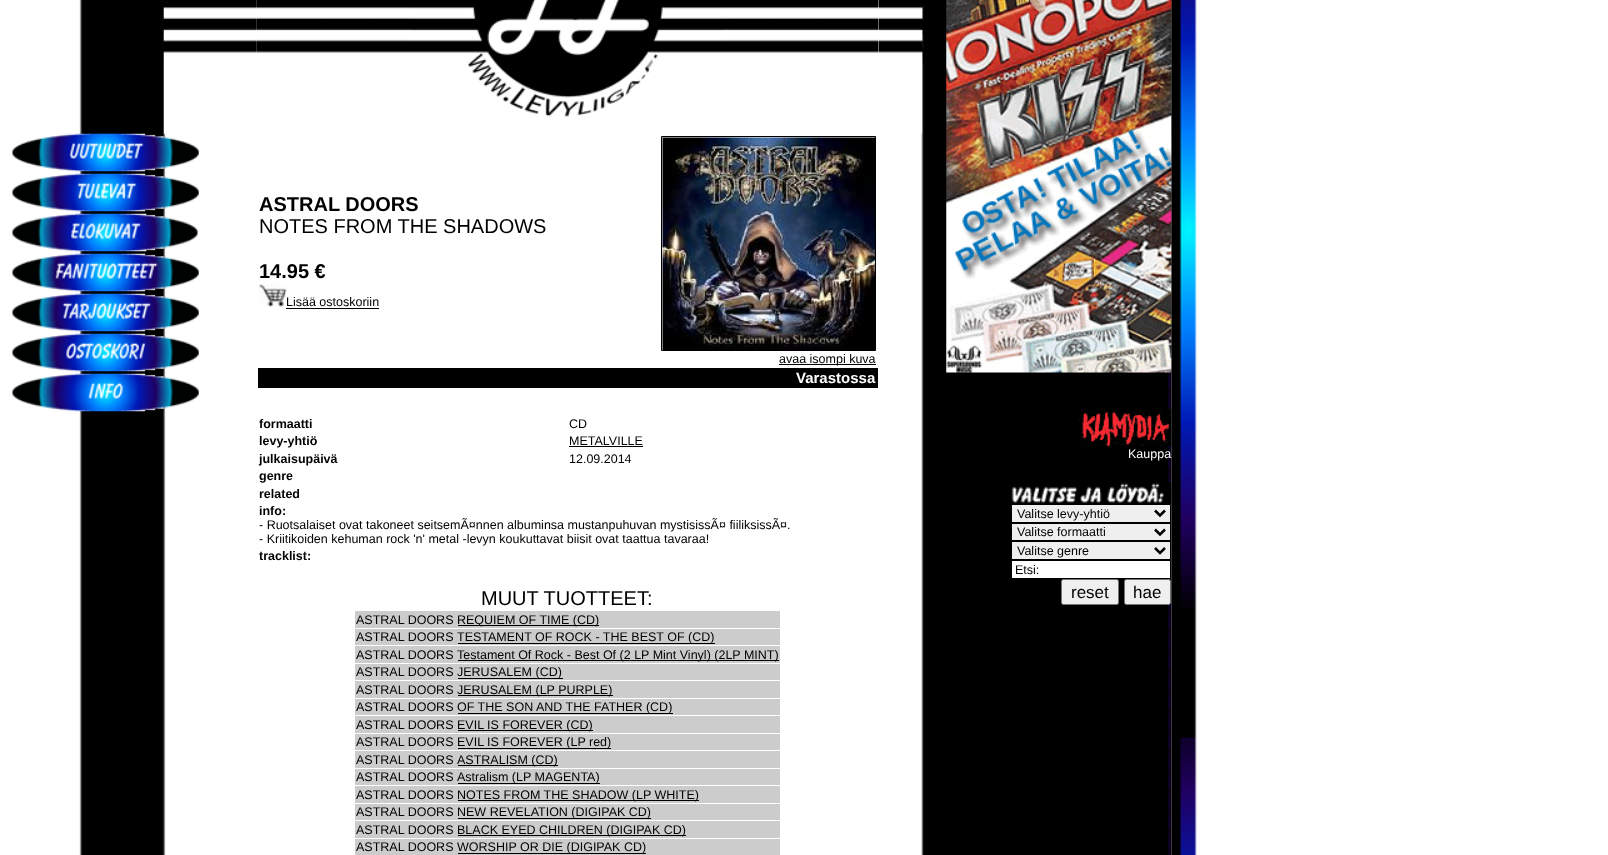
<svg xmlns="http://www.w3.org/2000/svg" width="1608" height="855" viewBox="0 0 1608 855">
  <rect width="100%" height="100%" fill="#fff"/>
  <image x="79" y="0" width="87" height="855" href="img/1.png"/>
  <image x="256" y="0" width="623" height="53" href="img/10.png"/>
  <image x="163" y="0" width="94" height="134" href="img/2.png"/>
  <image x="12" y="133" width="187" height="39" href="img/3.png"/>
  <image x="12" y="173" width="187" height="39" href="img/4.png"/>
  <image x="12" y="213" width="186" height="39" href="img/5.png"/>
  <image x="12" y="253" width="187" height="39" href="img/6.png"/>
  <image x="12" y="293" width="187" height="39" href="img/7.png"/>
  <image x="12" y="333" width="187" height="39" href="img/8.png"/>
  <image x="12" y="373" width="187" height="39" href="img/9.png"/>
  <image x="411" y="0" width="313" height="117" href="img/11.png"/>
  <image x="258" y="283" width="29" height="24" href="img/12.png"/>
  <path d="M286 308h93v1H286z" fill="#000"/>
  <path d="M661.5 136.5h214v214H661.5z" fill="none" stroke="#000"/>
  <image x="662" y="137" width="213" height="213" href="img/13.png"/>
  <path d="M779 364h97v1H779z" fill="#000"/>
  <path d="M258 368h620v20H258z" fill="#000"/>
  <path d="M569 446h74v1H569z" fill="#000"/>
  <path d="M355 611h425v17H355z" fill="#ccc"/>
  <path d="M458 625h141v1H458z" fill="#000"/>
  <path d="M355 629h425v16H355z" fill="#ccc"/>
  <path d="M458 643h257v1H458z" fill="#000"/>
  <path d="M355 646h425v17H355z" fill="#ccc"/>
  <path d="M458 660h321v1H458z" fill="#000"/>
  <path d="M355 664h425v16H355z" fill="#ccc"/>
  <path d="M458 678h105v1H458z" fill="#000"/>
  <path d="M355 681h425v17H355z" fill="#ccc"/>
  <path d="M458 695h155v1H458z" fill="#000"/>
  <path d="M355 699h425v16H355z" fill="#ccc"/>
  <path d="M458 713h215v1H458z" fill="#000"/>
  <path d="M355 716h425v17H355z" fill="#ccc"/>
  <path d="M458 730h135v1H458z" fill="#000"/>
  <path d="M355 734h425v16H355z" fill="#ccc"/>
  <path d="M458 748h153v1H458z" fill="#000"/>
  <path d="M355 751h425v17H355z" fill="#ccc"/>
  <path d="M458 765h100v1H458z" fill="#000"/>
  <path d="M355 769h425v16H355z" fill="#ccc"/>
  <path d="M458 783h142v1H458z" fill="#000"/>
  <path d="M355 786h425v17H355z" fill="#ccc"/>
  <path d="M458 800h241v1H458z" fill="#000"/>
  <path d="M355 804h425v16H355z" fill="#ccc"/>
  <path d="M458 818h193v1H458z" fill="#000"/>
  <path d="M355 821h425v17H355z" fill="#ccc"/>
  <path d="M458 835h228v1H458z" fill="#000"/>
  <path d="M355 839h425v16H355z" fill="#ccc"/>
  <path d="M458 853h188v1H458z" fill="#000"/>
  <image x="878" y="0" width="294" height="855" href="img/14.png"/>
  <image x="878" y="0" width="294" height="134" href="img/15.png"/>
  <image x="1171" y="0" width="26" height="855" href="img/19.png"/>
  <image x="946" y="0" width="226" height="373" href="img/16.png"/>
  <image x="1078" y="408" width="94" height="39" href="img/17.png"/>
  <image x="1011" y="482" width="161" height="22" href="img/18.png"/>
  <path d="M1011.5 504.5h159v18H1011.5z" fill="#efefef" stroke="#000"/>
  <path d="M1155 510.5L1160 515.5L1165 510.5" fill="none" stroke="#000" stroke-width="2.5"/>
  <path d="M1011.5 523.5h159v17H1011.5z" fill="#efefef" stroke="#000"/>
  <path d="M1155 529.5L1160 534.5L1165 529.5" fill="none" stroke="#000" stroke-width="2.5"/>
  <path d="M1011.5 541.5h159v18H1011.5z" fill="#efefef" stroke="#000"/>
  <path d="M1155 548L1160 553L1165 548" fill="none" stroke="#000" stroke-width="2.5"/>
  <path d="M1011.5 560.5h159v18H1011.5z" fill="#fff" stroke="#000"/>
  <rect x="1061.5" y="579.5" width="57" height="25" rx="2" fill="#efefef" stroke="#767676"/>
  <rect x="1124.5" y="579.5" width="46" height="25" rx="2" fill="#efefef" stroke="#767676"/>
  <text x="259" y="211" font-family="Liberation Sans" font-size="20" font-weight="bold" fill="#000">ASTRAL DOORS</text>
  <text x="259" y="233" font-family="Liberation Sans" font-size="20" fill="#000">NOTES FROM THE SHADOWS</text>
  <text x="259" y="278" font-family="Liberation Sans" font-size="20" font-weight="bold" fill="#000">14.95 €</text>
  <g font-family="Liberation Sans" font-size="12.5" fill="#000">
    <text x="286" y="306">Lisää ostoskoriin</text>
    <text x="779" y="363">avaa isompi kuva</text>
  </g>
  <text x="796" y="383" font-family="Liberation Sans" font-size="15" font-weight="bold" fill="#fff">Varastossa</text>
  <text x="259" y="428" font-family="Liberation Sans" font-size="12.5" font-weight="bold" fill="#000">formaatti</text>
  <text x="569" y="428" font-family="Liberation Sans" font-size="12.5" fill="#000">CD</text>
  <text x="259" y="445" font-family="Liberation Sans" font-size="12.5" font-weight="bold" fill="#000">levy-yhtiö</text>
  <text x="569" y="445" font-family="Liberation Sans" font-size="12.5" fill="#000">METALVILLE</text>
  <text x="259" y="463" font-family="Liberation Sans" font-size="12.5" font-weight="bold" fill="#000">julkaisupäivä</text>
  <text x="569" y="463" font-family="Liberation Sans" font-size="12.5" fill="#000">12.09.2014</text>
  <g font-family="Liberation Sans" font-size="12.5" font-weight="bold" fill="#000">
    <text x="259" y="480">genre</text>
    <text x="259" y="498">related</text>
    <text x="259" y="515">info:</text>
  </g>
  <g font-family="Liberation Sans" font-size="12.5" fill="#000">
    <text x="259" y="529">- Ruotsalaiset ovat takoneet seitsemÃ¤nnen albuminsa mustanpuhuvan mystisissÃ¤ fiiliksissÃ¤.</text>
    <text x="259" y="543">- Kriitikoiden kehuman rock 'n' metal -levyn koukuttavat biisit ovat taattua tavaraa!</text>
  </g>
  <text x="259" y="560" font-family="Liberation Sans" font-size="12.5" font-weight="bold" fill="#000">tracklist:</text>
  <text x="481" y="605" font-family="Liberation Sans" font-size="20" fill="#000">MUUT TUOTTEET:</text>
  <g font-family="Liberation Sans" font-size="12.5" fill="#000">
    <text x="356" y="624">ASTRAL DOORS</text>
    <text x="457" y="624">REQUIEM OF TIME (CD)</text>
    <text x="356" y="641">ASTRAL DOORS</text>
    <text x="457" y="641">TESTAMENT OF ROCK - THE BEST OF (CD)</text>
    <text x="356" y="659">ASTRAL DOORS</text>
    <text x="457" y="659">Testament Of Rock - Best Of (2 LP Mint Vinyl) (2LP MINT)</text>
    <text x="356" y="676">ASTRAL DOORS</text>
    <text x="457" y="676">JERUSALEM (CD)</text>
    <text x="356" y="694">ASTRAL DOORS</text>
    <text x="457" y="694">JERUSALEM (LP PURPLE)</text>
    <text x="356" y="711">ASTRAL DOORS</text>
    <text x="457" y="711">OF THE SON AND THE FATHER (CD)</text>
    <text x="356" y="729">ASTRAL DOORS</text>
    <text x="457" y="729">EVIL IS FOREVER (CD)</text>
    <text x="356" y="746">ASTRAL DOORS</text>
    <text x="457" y="746">EVIL IS FOREVER (LP red)</text>
    <text x="356" y="764">ASTRAL DOORS</text>
    <text x="457" y="764">ASTRALISM (CD)</text>
    <text x="356" y="781">ASTRAL DOORS</text>
    <text x="457" y="781">Astralism (LP MAGENTA)</text>
    <text x="356" y="799">ASTRAL DOORS</text>
    <text x="457" y="799">NOTES FROM THE SHADOW (LP WHITE)</text>
    <text x="356" y="816">ASTRAL DOORS</text>
    <text x="457" y="816">NEW REVELATION (DIGIPAK CD)</text>
    <text x="356" y="834">ASTRAL DOORS</text>
    <text x="457" y="834">BLACK EYED CHILDREN (DIGIPAK CD)</text>
    <text x="356" y="851">ASTRAL DOORS</text>
    <text x="457" y="851">WORSHIP OR DIE (DIGIPAK CD)</text>
  </g>
  <text x="1128" y="458" font-family="Liberation Sans" font-size="12.5" fill="#fff">Kauppa</text>
  <g font-family="Liberation Sans" font-size="12.5" fill="#000">
    <text x="1017" y="518">Valitse levy-yhtiö</text>
    <text x="1017" y="536">Valitse formaatti</text>
    <text x="1017" y="555">Valitse genre</text>
    <text x="1015" y="574">Etsi:</text>
  </g>
  <g font-family="Liberation Sans" font-size="17" fill="#000">
    <text x="1071" y="598">reset</text>
    <text x="1133" y="598">hae</text>
  </g>
</svg>
